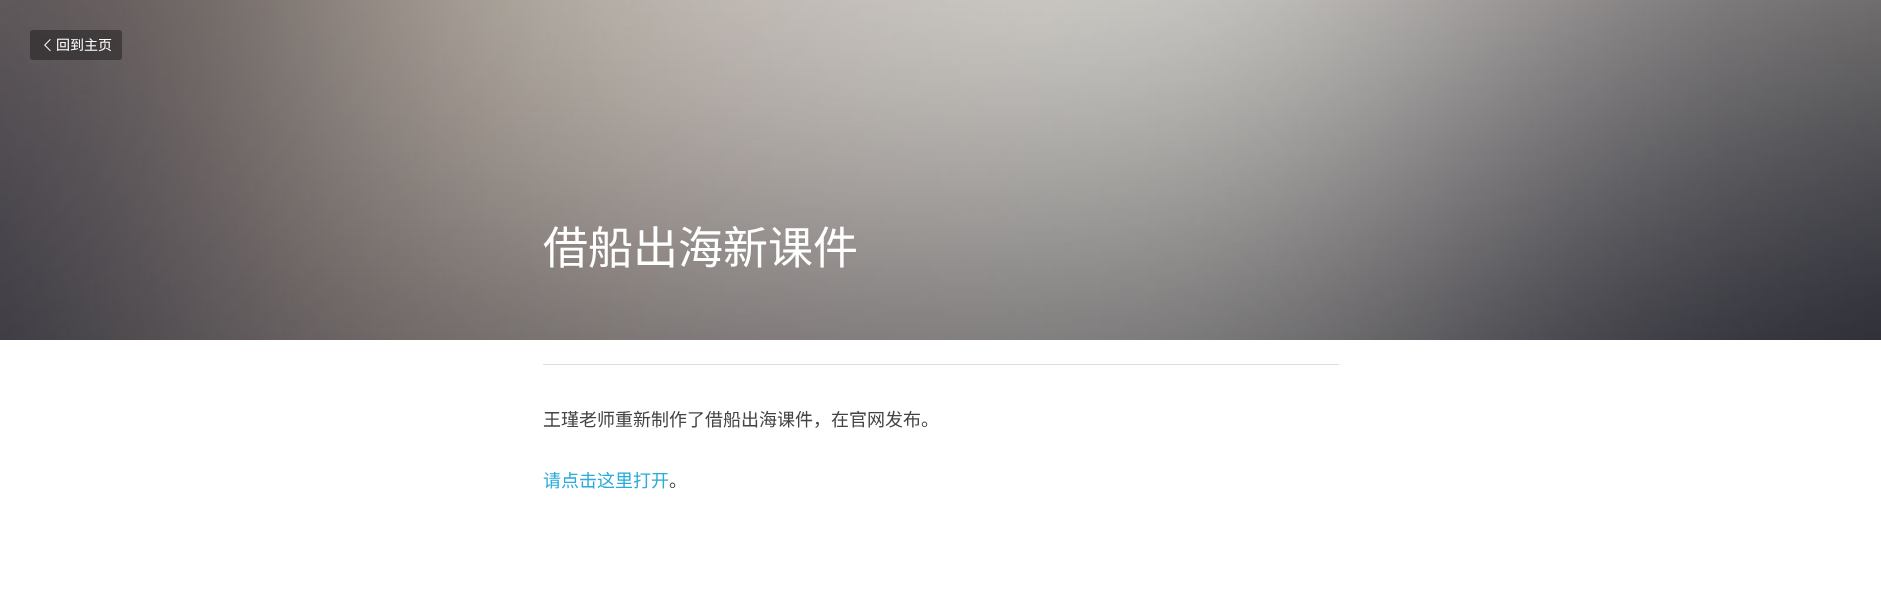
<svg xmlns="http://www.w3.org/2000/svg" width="1881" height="615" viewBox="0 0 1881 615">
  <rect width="100%" height="100%" fill="#fff"/>
  <image x="0" y="0" width="1881" height="340" href="img/1.png"/>
  <rect x="30" y="30" width="92" height="30" rx="3" fill="#00000059"/>
  <image x="44" y="39" width="7" height="13" href="img/2.png"/>
  <path d="M543 364h796v1H543z" fill="#ddd"/>
  <text x="56" y="50" font-family="Noto Sans CJK SC" font-size="14" fill="#fff">回到主页</text>
  <text x="543" y="264" font-family="Noto Sans CJK SC" font-size="45" fill="#fff">借船出海新课件</text>
  <text x="543" y="426" font-family="Noto Sans CJK SC" font-size="18" fill="#444">王瑾老师重新制作了借船出海课件，在官网发布。</text>
  <text x="543" y="487" font-family="Noto Sans CJK SC" font-size="18" fill="#2aabd9">请点击这里打开</text>
  <text x="669" y="487" font-family="Noto Sans CJK SC" font-size="18" fill="#444">。</text>
</svg>
